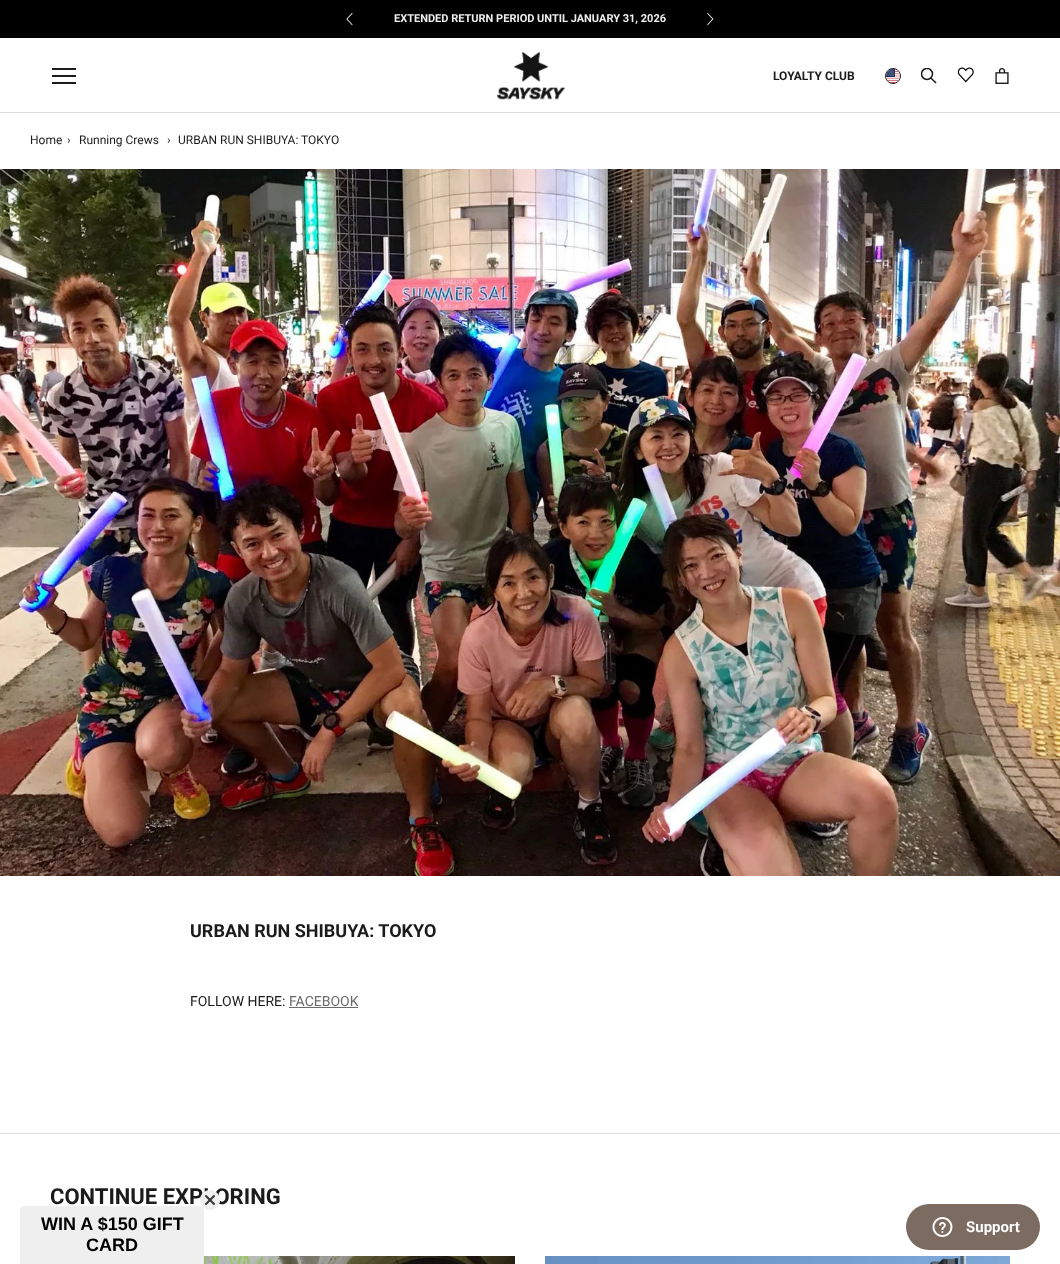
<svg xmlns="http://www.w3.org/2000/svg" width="1060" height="1264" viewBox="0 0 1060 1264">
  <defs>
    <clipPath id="clip1"><path d="M921 68h16v16H921z"/></clipPath>
  </defs>
  <rect width="100%" height="100%" fill="#fff"/>
  <path d="M0 0h1060v38H0z" fill="#000"/>
  <image x="346" y="12" width="7" height="14" href="img/1.png"/>
  <image x="707" y="12" width="7" height="14" href="img/2.png"/>
  <path d="M0 112h1060v1H0z" fill="#ddd"/>
  <image x="52" y="68" width="24" height="16" href="img/3.png"/>
  <image x="497" y="52" width="68" height="48" href="img/4.png"/>
  <circle cx="893" cy="76" r="7.5" fill="none" stroke="#1c1b1b"/>
  <image x="886" y="69" width="14" height="14" href="img/5.png"/>
  <path d="M935.5 82.5L931 78" fill="none" stroke="#1c1b1b" stroke-width="1.5" stroke-linecap="square"/>
  <g clip-path="url(#clip1)">
    <circle cx="927" cy="74" r="5.5" fill="none" stroke="#1c1b1b" stroke-width="1.5"/>
  </g>
  <image x="957" y="67" width="17" height="16" href="img/6.png"/>
  <image x="995" y="68" width="14" height="16" href="img/7.png"/>
  <image x="0" y="169" width="1060" height="707" href="img/8.png"/>
  <path d="M289 1007h69v1H289z" fill="#6a6a6a"/>
  <path d="M0 1133h1060v1H0z" fill="#ddd"/>
  <image x="204" y="1256" width="311" height="8" href="img/9.png"/>
  <image x="545" y="1256" width="465" height="8" href="img/10.png"/>
  <path d="M24 1206H200C202 1206 204 1208 204 1210V1264H20V1210C20 1208 22 1206 24 1206Z" fill="#efefef"/>
  <rect x="906" y="1204" width="134" height="46" rx="23" fill="#7c6b60"/>
  <image x="932" y="1217" width="21" height="20" href="img/12.png"/>
  <text x="394" y="22" font-family="Roboto" font-size="11" font-weight="bold" fill="#efefef">EXTENDED RETURN PERIOD UNTIL JANUARY 31, 2026</text>
  <text x="773" y="80" font-family="Roboto" font-size="12" font-weight="bold" fill="#1c1b1b">LOYALTY CLUB</text>
  <g font-family="Roboto" font-size="12" fill="#1c1b1b">
    <text x="30" y="144">Home</text>
    <text x="67" y="144">›</text>
    <text x="79" y="144">Running Crews</text>
    <text x="167" y="144">›</text>
    <text x="178" y="144">URBAN RUN SHIBUYA: TOKYO</text>
  </g>
  <text x="190" y="937" font-family="Roboto" font-size="18" font-weight="bold" fill="#1c1b1b">URBAN RUN SHIBUYA: TOKYO</text>
  <text x="190" y="1006" font-family="Roboto" font-size="14" fill="#1c1b1b">FOLLOW HERE:</text>
  <text x="289" y="1006" font-family="Roboto" font-size="14" fill="#6a6a6a">FACEBOOK</text>
  <text x="50" y="1204" font-family="Roboto" font-size="22" font-weight="bold" fill="#1c1b1b">CONTINUE EXPLORING</text>
  <image x="200" y="1190" width="20" height="20" href="img/11.png"/>
  <g font-family="Liberation Sans" font-size="18" font-weight="bold" fill="#000">
    <text x="41" y="1230">WIN A $150 GIFT</text>
    <text x="86" y="1251">CARD</text>
  </g>
  <text x="966" y="1232" font-family="Roboto" font-size="15" font-weight="bold" fill="#fcfcfc">Support</text>
</svg>
